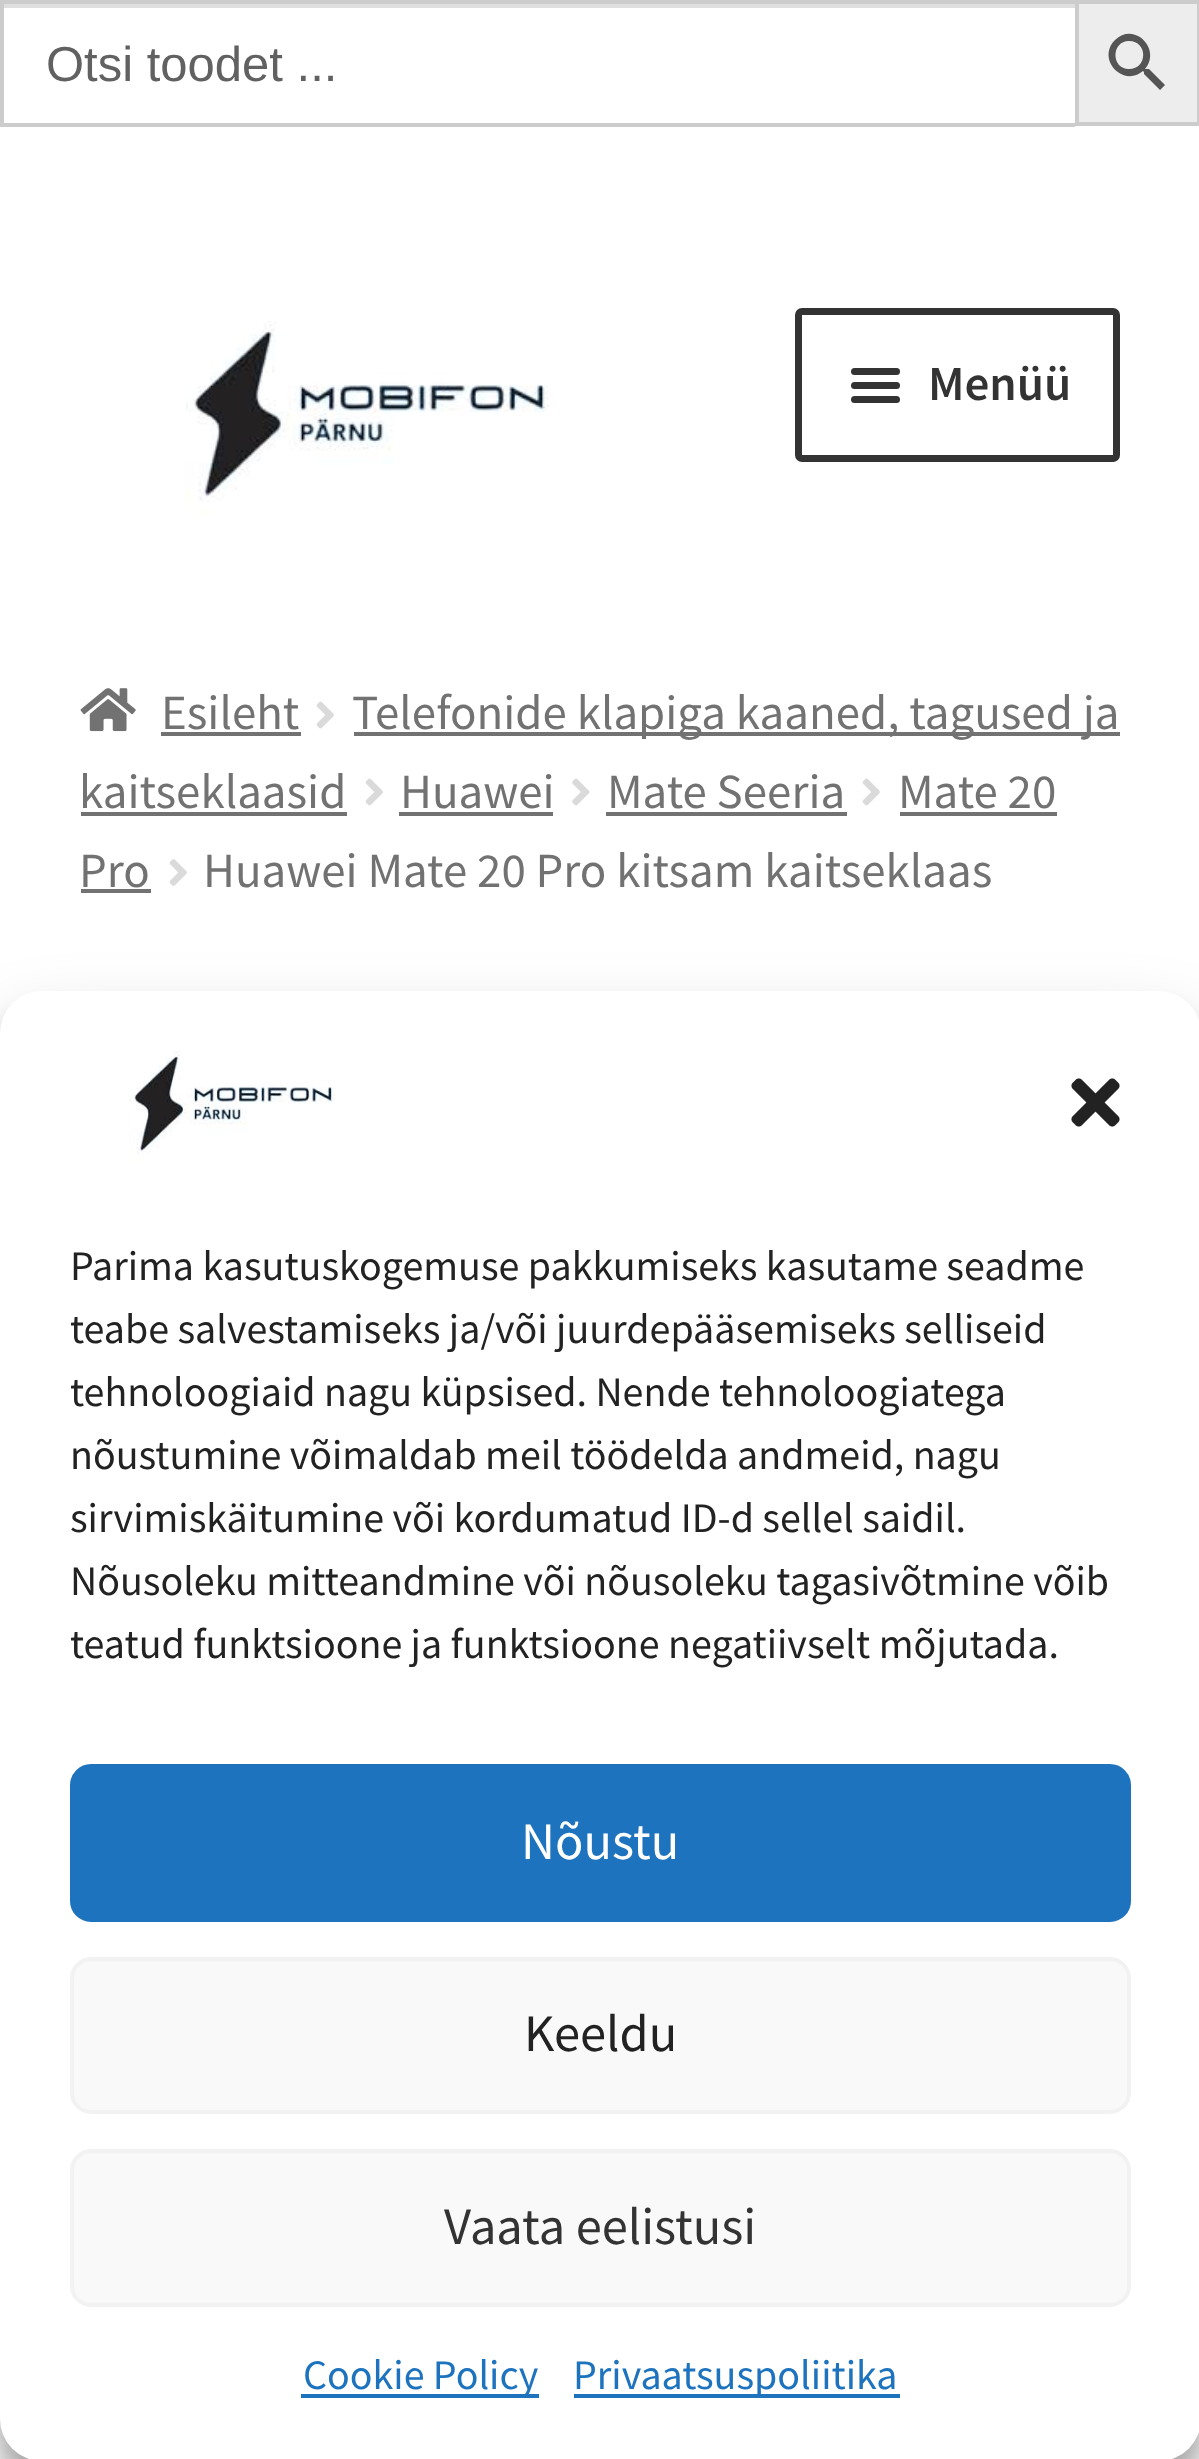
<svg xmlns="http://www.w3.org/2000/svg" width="1199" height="2459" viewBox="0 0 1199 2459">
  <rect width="100%" height="100%" fill="#fff"/>
  <path d="M4 4h1071v4H4z" fill="#dfdfdf"/>
  <path d="M0 0h1075v4H0z" fill="#ccc"/>
  <path d="M0 123h1075v4H0z" fill="#ccc"/>
  <path d="M0 0h4v126H0z" fill="#ccc"/>
  <path d="M1077 2h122v122H1077z" fill="#ededed" stroke="#ccc" stroke-width="4"/>
  <path d="M1149 69H1146H1145C1162 49 1134 21 1115 40C1096 59 1123 88 1143 71L1144 72V74L1160 90L1165 85ZM1129 69C1111 69 1111 41 1129 41C1148 41 1148 69 1129 69Z" fill="#555"/>
  <image x="185" y="321" width="364" height="193" href="img/1.png"/>
  <rect x="798.5" y="311.5" width="318" height="147" rx="3.5" fill="none" stroke="#333" stroke-width="7"/>
  <rect x="851" y="368" width="49" height="7" rx="3.5" fill="#333"/>
  <rect x="851" y="382" width="49" height="7" rx="3.5" fill="#333"/>
  <rect x="851" y="396" width="49" height="7" rx="3.5" fill="#333"/>
  <image x="80" y="688" width="56" height="44" href="img/2.png"/>
  <path d="M161 732h140v4H161z" fill="#727272"/>
  <image x="316" y="701" width="18" height="28" href="img/3.png"/>
  <path d="M354 732h766v4H354z" fill="#727272"/>
  <path d="M81 812h266v4H81z" fill="#727272"/>
  <image x="365" y="778" width="18" height="28" href="img/3.png"/>
  <path d="M399 812h154v4H399z" fill="#727272"/>
  <image x="572" y="778" width="18" height="28" href="img/4.png"/>
  <path d="M606 812h241v4H606z" fill="#727272"/>
  <image x="862" y="778" width="18" height="28" href="img/3.png"/>
  <path d="M900 812h157v4H900z" fill="#727272"/>
  <path d="M81 889h70v4H81z" fill="#727272"/>
  <image x="169" y="859" width="18" height="27" href="img/5.png"/>
  <rect y="1012" width="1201" height="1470" rx="42" fill="#0000003b" filter="blur(10.5px)"/>
  <rect y="1026" width="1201" height="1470" rx="42" fill="#00000030" filter="blur(35px)"/>
  <rect y="991" width="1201" height="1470" rx="42" fill="#fff"/>
  <image x="129" y="1050" width="206" height="111" href="img/6.png"/>
  <image x="1071" y="1078" width="49" height="49" href="img/7.png"/>
  <rect x="72" y="1766" width="1057" height="154" rx="19" fill="#1e73be" stroke="#1e73be" stroke-width="4"/>
  <rect x="72" y="1959" width="1057" height="153" rx="19" fill="#f9f9f9" stroke="#f2f2f2" stroke-width="4"/>
  <rect x="72" y="2151" width="1057" height="154" rx="19" fill="#f9f9f9" stroke="#f2f2f2" stroke-width="4"/>
  <path d="M301 2394h238v4H301z" fill="#1e73be"/>
  <path d="M574 2394h326v4H574z" fill="#1e73be"/>
  <text x="46" y="81" font-family="Liberation Sans" font-size="49" fill="#616161">Otsi toodet ...</text>
  <text x="928" y="400" font-family="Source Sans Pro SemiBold" font-size="49" font-weight="600" fill="#333">Menüü</text>
  <g font-family="Source Sans Pro" font-size="49" fill="#727272">
    <text x="161" y="729">Esileht</text>
    <text x="352" y="729">Telefonide klapiga kaaned, tagused ja</text>
    <text x="79" y="808">kaitseklaasid</text>
    <text x="400" y="808">Huawei</text>
    <text x="607" y="808">Mate Seeria</text>
    <text x="898" y="808">Mate 20</text>
    <text x="79" y="887">Pro</text>
    <text x="203" y="887">Huawei Mate 20 Pro kitsam kaitseklaas</text>
  </g>
  <g font-family="Source Sans Pro" font-size="42" fill="#222">
    <text x="70" y="1280">Parima kasutuskogemuse pakkumiseks kasutame seadme</text>
    <text x="70" y="1343">teabe salvestamiseks ja/või juurdepääsemiseks selliseid</text>
    <text x="70" y="1406">tehnoloogiaid nagu küpsised. Nende tehnoloogiatega</text>
    <text x="70" y="1469">nõustumine võimaldab meil töödelda andmeid, nagu</text>
    <text x="70" y="1532">sirvimiskäitumine või kordumatud ID-d sellel saidil.</text>
    <text x="70" y="1595">Nõusoleku mitteandmine või nõusoleku tagasivõtmine võib</text>
    <text x="70" y="1658">teatud funktsioone ja funktsioone negatiivselt mõjutada.</text>
  </g>
  <text x="521" y="1859" font-family="Source Sans Pro" font-size="52.5" fill="#fff">Nõustu</text>
  <text x="524" y="2051" font-family="Source Sans Pro" font-size="52.5" fill="#222">Keeldu</text>
  <text x="444" y="2244" font-family="Source Sans Pro" font-size="52.5" fill="#333">Vaata eelistusi</text>
  <g font-family="Source Sans Pro" font-size="42" fill="#1e73be">
    <text x="303" y="2389">Cookie Policy</text>
    <text x="573" y="2389">Privaatsuspoliitika</text>
  </g>
</svg>
